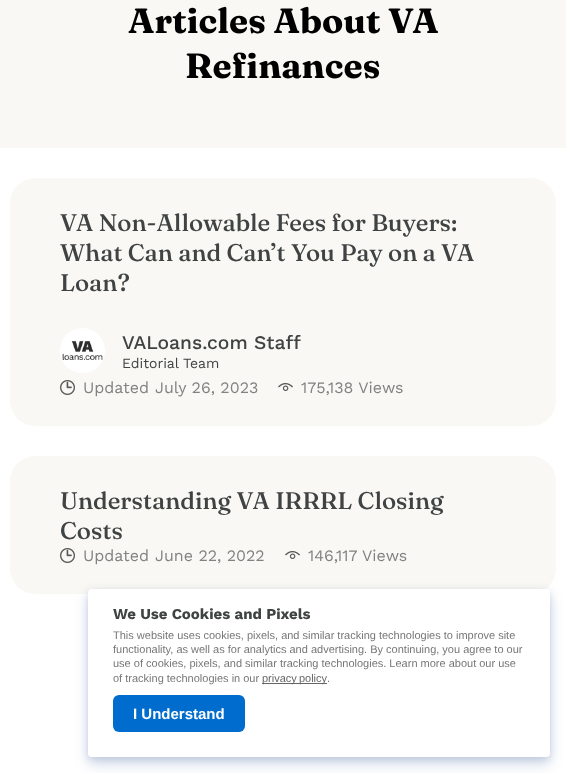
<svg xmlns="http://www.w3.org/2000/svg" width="566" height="773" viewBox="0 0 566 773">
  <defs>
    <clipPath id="clip1"><path d="M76 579H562V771H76ZM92 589H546C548 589 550 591 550 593V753C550 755 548 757 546 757H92C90 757 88 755 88 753V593C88 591 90 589 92 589Z" clip-rule="evenodd"/></clipPath>
    <clipPath id="clip2"><path d="M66 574H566V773H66ZM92 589H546C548 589 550 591 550 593V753C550 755 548 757 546 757H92C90 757 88 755 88 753V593C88 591 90 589 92 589Z" clip-rule="evenodd"/></clipPath>
  </defs>
  <rect width="100%" height="100%" fill="#fff"/>
  <path d="M0 0h566v148H0z" fill="#f9f8f4"/>
  <rect x="10" y="178" width="546" height="248" rx="25" fill="#f9f8f4"/>
  <image x="60" y="328" width="45" height="45" href="img/1.png"/>
  <image x="60" y="380" width="15" height="15" href="img/2.png"/>
  <image x="278" y="383" width="15" height="8" href="img/3.png"/>
  <rect x="10" y="456" width="546" height="138" rx="25" fill="#f9f8f4"/>
  <image x="60" y="548" width="15" height="15" href="img/2.png"/>
  <image x="285" y="551" width="15" height="8" href="img/3.png"/>
  <g clip-path="url(#clip1)">
    <rect x="88" y="591" width="462" height="168" rx="4" fill="#012a7e1f" filter="blur(3.5px)"/>
  </g>
  <g clip-path="url(#clip2)">
    <rect x="88" y="596" width="462" height="168" rx="4" fill="#012a7e2e" filter="blur(7px)"/>
  </g>
  <rect x="88" y="589" width="462" height="168" rx="4" fill="#fffffff2"/>
  <path d="M262 683h65v1H262z" fill="#666"/>
  <rect x="113" y="695" width="132" height="37" rx="6" fill="#006ccd"/>
  <g font-family="Fraunces" font-size="35" font-weight="bold" fill="#000">
    <text x="128" y="33">Articles About VA</text>
    <text x="185" y="78">Refinances</text>
  </g>
  <g font-family="Fraunces" font-size="24" font-weight="500" fill="#404343">
    <text x="60" y="231">VA Non-Allowable Fees for Buyers:</text>
    <text x="60" y="261">What Can and Can’t You Pay on a VA</text>
    <text x="60" y="291">Loan?</text>
  </g>
  <text x="122" y="349" font-family="Work Sans" font-size="19.25" font-weight="500" fill="#404343">VALoans.com Staff</text>
  <text x="122" y="368" font-family="Work Sans" font-size="14" fill="#404343">Editorial Team</text>
  <g font-family="Work Sans" font-size="16" fill="#818281">
    <text x="83" y="393">Updated</text>
    <text x="155" y="393">July 26, 2023</text>
    <text x="301" y="393">175,138 Views</text>
  </g>
  <g font-family="Fraunces" font-size="24" font-weight="500" fill="#404343">
    <text x="60" y="509">Understanding VA IRRRL Closing</text>
    <text x="60" y="539">Costs</text>
  </g>
  <g font-family="Work Sans" font-size="16" fill="#818281">
    <text x="83" y="561">Updated</text>
    <text x="155" y="561">June 22, 2022</text>
    <text x="308" y="561">146,117 Views</text>
  </g>
  <text x="113" y="619" font-family="Work Sans" font-size="15" font-weight="bold" fill="#404343">We Use Cookies and Pixels</text>
  <g font-family="Liberation Sans" font-size="11" fill="#777">
    <text x="113" y="639">This website uses cookies, pixels, and similar tracking technologies to improve site</text>
    <text x="113" y="653">functionality, as well as for analytics and advertising. By continuing, you agree to our</text>
    <text x="113" y="667">use of cookies, pixels, and similar tracking technologies. Learn more about our use</text>
    <text x="113" y="682">of tracking technologies in our</text>
  </g>
  <text x="262" y="682" word-spacing="-1" font-family="Liberation Sans" font-size="11" fill="#666">privacy policy</text>
  <text x="327" y="682" font-family="Liberation Sans" font-size="11" fill="#777">.</text>
  <text x="133" y="719" font-family="Liberation Sans" font-size="15" font-weight="bold" fill="#fff">I Understand</text>
</svg>
